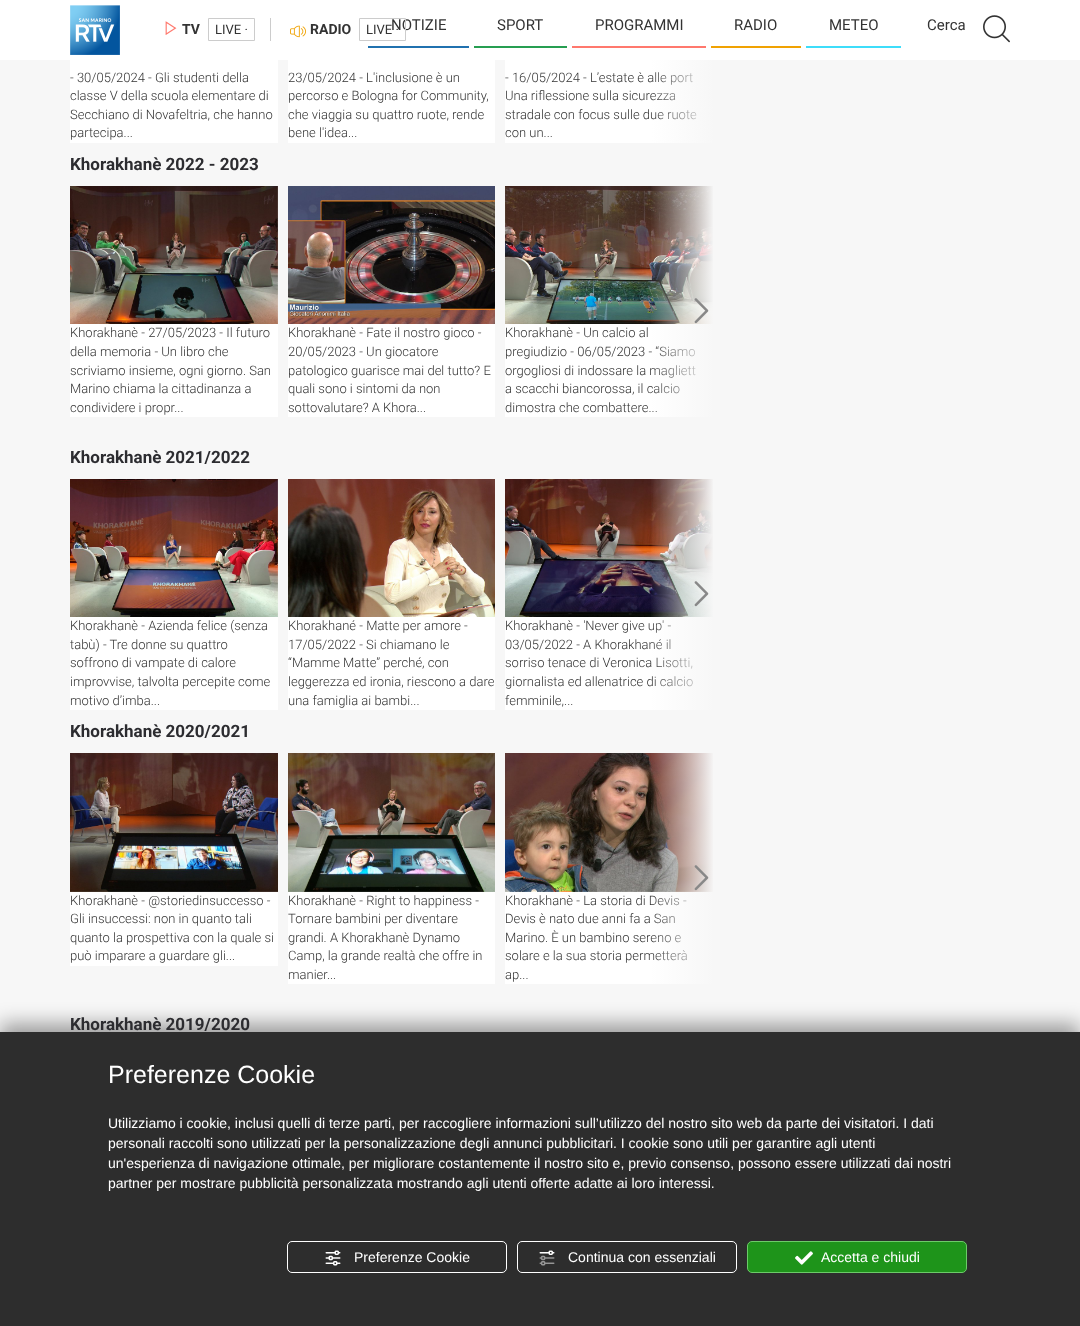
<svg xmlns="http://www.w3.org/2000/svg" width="1080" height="1326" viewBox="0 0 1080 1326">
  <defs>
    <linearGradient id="g1" gradientUnits="userSpaceOnUse" x1="650" y1="28" x2="714" y2="27"><stop offset="0" stop-color="#f7f7f7" stop-opacity="0"/><stop offset="1" stop-color="#f7f7f7"/></linearGradient>
    <linearGradient id="g2" gradientUnits="userSpaceOnUse" x1="650" y1="311" x2="714" y2="311"><stop offset="0" stop-color="#f7f7f7" stop-opacity="0"/><stop offset="1" stop-color="#f7f7f7"/></linearGradient>
    <linearGradient id="g3" gradientUnits="userSpaceOnUse" x1="650" y1="595" x2="714" y2="595"><stop offset="0" stop-color="#f7f7f7" stop-opacity="0"/><stop offset="1" stop-color="#f7f7f7"/></linearGradient>
    <linearGradient id="g4" gradientUnits="userSpaceOnUse" x1="650" y1="878" x2="714" y2="878"><stop offset="0" stop-color="#f7f7f7" stop-opacity="0"/><stop offset="1" stop-color="#f7f7f7"/></linearGradient>
  </defs>
  <rect width="100%" height="100%" fill="#f7f7f7"/>
  <path d="M0 0h1080v60H0z" fill="#fff"/>
  <image x="70" y="5" width="50" height="50" href="img/1.png"/>
  <path d="M270 18h1v23H270z" fill="#ccc"/>
  <image x="165" y="21" width="12" height="14" href="img/2.png"/>
  <path d="M208.5 18.5h46v22H208.5z" fill="none" stroke="#ccc"/>
  <image x="290" y="25" width="16" height="13" href="img/3.png"/>
  <path d="M368 46h101v2H368z" fill="#2071af"/>
  <path d="M474 46h93v2H474z" fill="#269e51"/>
  <path d="M572 46h134v2H572z" fill="#ff786d"/>
  <path d="M711 46h90v2H711z" fill="#f0a202"/>
  <path d="M806 46h95v2H806z" fill="#3dddfa"/>
  <image x="983" y="15" width="27" height="28" href="img/4.png"/>
  <path d="M70 60h208v83H70z" fill="#fff"/>
  <path d="M288 60h207v83H288z" fill="#fff"/>
  <path d="M505 60h208v83H505z" fill="#fff"/>
  <path d="M70 186h208v231H70z" fill="#fff"/>
  <image x="70" y="186" width="208" height="138" href="img/6.png"/>
  <path d="M288 324h207v93H288z" fill="#fff"/>
  <image x="288" y="186" width="207" height="138" href="img/7.png"/>
  <path d="M505 186h208v231H505z" fill="#fff"/>
  <image x="505" y="186" width="208" height="138" href="img/8.png"/>
  <path d="M70 479h208v231H70z" fill="#fff"/>
  <image x="70" y="479" width="208" height="138" href="img/10.png"/>
  <path d="M288 617h207v93H288z" fill="#fff"/>
  <image x="288" y="479" width="207" height="138" href="img/11.png"/>
  <path d="M505 479h208v231H505z" fill="#fff"/>
  <image x="505" y="479" width="208" height="138" href="img/12.png"/>
  <path d="M70 891h208v75H70z" fill="#fff"/>
  <image x="70" y="753" width="208" height="139" href="img/14.png"/>
  <path d="M288 891h207v93H288z" fill="#fff"/>
  <image x="288" y="753" width="207" height="139" href="img/15.png"/>
  <path d="M505 891h208v93H505z" fill="#fff"/>
  <image x="505" y="753" width="208" height="139" href="img/16.png"/>
  <path d="M0 1024h1080v294H0z" fill="#00000061" filter="blur(10px)"/>
  <path d="M0 1032h1080v294H0z" fill="#2d2d2d"/>
  <rect x="287.5" y="1241.5" width="219" height="31" rx="4.5" fill="none" stroke="#fff"/>
  <image x="325" y="1250" width="16" height="16" href="img/17.png"/>
  <rect x="517.5" y="1241.5" width="219" height="31" rx="4.5" fill="none" stroke="#fff"/>
  <image x="539" y="1250" width="16" height="16" href="img/18.png"/>
  <rect x="747.5" y="1241.5" width="219" height="31" rx="4.5" fill="#1e941a" stroke="#6cca69"/>
  <image x="795" y="1251" width="18" height="14" href="img/19.png"/>
  <text x="182" y="34" font-family="Roboto" font-size="14" font-weight="bold" fill="#333">TV</text>
  <text x="215" y="34" font-family="Roboto" font-size="13" fill="#333">LIVE ·</text>
  <text x="310" y="34" font-family="Roboto" font-size="14" font-weight="bold" fill="#333">RADIO</text>
  <text x="391" y="30" font-family="Roboto" font-size="15" fill="#333">NOTIZIE</text>
  <path d="M359.5 18.5h46v22H359.5z" fill="none" stroke="#ccc"/>
  <text x="366" y="34" font-family="Roboto" font-size="13" fill="#333">LIVE ·</text>
  <g font-family="Roboto" font-size="15" fill="#333">
    <text x="497" y="30">SPORT</text>
    <text x="595" y="30">PROGRAMMI</text>
    <text x="734" y="30">RADIO</text>
    <text x="829" y="30">METEO</text>
    <text x="927" y="30">Cerca</text>
  </g>
  <g font-family="Roboto" font-size="13" font-weight="300" fill="#333">
    <text x="70" y="82">- 30/05/2024 - Gli studenti della</text>
    <text x="70" y="100">classe V della scuola elementare di</text>
    <text x="70" y="119">Secchiano di Novafeltria, che hanno</text>
    <text x="70" y="137">partecipa...</text>
    <text x="288" y="82">23/05/2024 - L'inclusione è un</text>
    <text x="288" y="100">percorso e Bologna for Community,</text>
    <text x="288" y="119">che viaggia su quattro ruote, rende</text>
    <text x="288" y="137">bene l'idea...</text>
    <text x="505" y="82">- 16/05/2024 - L’estate è alle port</text>
    <text x="505" y="100">Una riflessione sulla sicurezza</text>
    <text x="505" y="119">stradale con focus sulle due ruote</text>
  </g>
  <path d="M652 60h61v83H652z" fill="url(#g1)"/>
  <text x="505" y="137" font-family="Roboto" font-size="13" font-weight="300" fill="#333">con un...</text>
  <text x="70" y="170" font-family="Roboto" font-size="17" font-weight="bold" fill="#2c2c30">Khorakhanè 2022 - 2023</text>
  <g font-family="Roboto" font-size="13" font-weight="300" fill="#333">
    <text x="70" y="337">Khorakhanè - 27/05/2023 - Il futuro</text>
    <text x="70" y="356">della memoria - Un libro che</text>
    <text x="70" y="375">scriviamo insieme, ogni giorno. San</text>
    <text x="70" y="393">Marino chiama la cittadinanza a</text>
    <text x="70" y="412">condividere i propr...</text>
    <text x="288" y="337">Khorakhanè - Fate il nostro gioco -</text>
    <text x="288" y="356">20/05/2023 - Un giocatore</text>
    <text x="288" y="375">patologico guarisce mai del tutto? E</text>
    <text x="288" y="393">quali sono i sintomi da non</text>
    <text x="288" y="412">sottovalutare? A Khora...</text>
    <text x="505" y="337">Khorakhanè - Un calcio al</text>
    <text x="505" y="356">pregiudizio - 06/05/2023 - “Siamo</text>
    <text x="505" y="375">orgogliosi di indossare la magliett</text>
    <text x="505" y="393">a scacchi biancorossa, il calcio</text>
    <text x="505" y="412">dimostra che combattere...</text>
  </g>
  <path d="M651 186h62v231H651z" fill="url(#g2)"/>
  <image x="694" y="298" width="15" height="26" href="img/5.png"/>
  <text x="70" y="463" font-family="Roboto" font-size="17" font-weight="bold" fill="#2c2c30">Khorakhanè 2021/2022</text>
  <g font-family="Roboto" font-size="13" font-weight="300" fill="#333">
    <text x="70" y="630">Khorakhanè - Azienda felice (senza</text>
    <text x="70" y="649">tabù) - Tre donne su quattro</text>
    <text x="70" y="667">soffrono di vampate di calore</text>
    <text x="70" y="686">improvvise, talvolta percepite come</text>
    <text x="70" y="705">motivo d’imba...</text>
    <text x="288" y="630">Khorakhané - Matte per amore -</text>
    <text x="288" y="649">17/05/2022 - Si chiamano le</text>
    <text x="288" y="667">“Mamme Matte” perché, con</text>
    <text x="288" y="686">leggerezza ed ironia, riescono a dare</text>
    <text x="288" y="705">una famiglia ai bambi...</text>
    <text x="505" y="630">Khorakhanè - 'Never give up' -</text>
    <text x="505" y="649">03/05/2022 - A Khorakhané il</text>
    <text x="505" y="667">sorriso tenace di Veronica Lisotti,</text>
    <text x="505" y="686">giornalista ed allenatrice di calcio</text>
  </g>
  <path d="M651 479h62v231H651z" fill="url(#g3)"/>
  <image x="694" y="581" width="15" height="26" href="img/9.png"/>
  <text x="505" y="705" font-family="Roboto" font-size="13" font-weight="300" fill="#333">femminile,...</text>
  <text x="70" y="737" font-family="Roboto" font-size="17" font-weight="bold" fill="#2c2c30">Khorakhanè 2020/2021</text>
  <g font-family="Roboto" font-size="13" font-weight="300" fill="#333">
    <text x="70" y="905">Khorakhanè - @storiedinsuccesso -</text>
    <text x="70" y="923">Gli insuccessi: non in quanto tali</text>
    <text x="70" y="942">quanto la prospettiva con la quale si</text>
    <text x="70" y="960">può imparare a guardare gli...</text>
    <text x="288" y="905">Khorakhanè - Right to happiness -</text>
    <text x="288" y="923">Tornare bambini per diventare</text>
    <text x="288" y="942">grandi. A Khorakhanè Dynamo</text>
    <text x="288" y="960">Camp, la grande realtà che offre in</text>
    <text x="288" y="979">manier...</text>
    <text x="505" y="905">Khorakhanè - La storia di Devis -</text>
    <text x="505" y="923">Devis è nato due anni fa a San</text>
    <text x="505" y="942">Marino. È un bambino sereno e</text>
    <text x="505" y="960">solare e la sua storia permetterà</text>
  </g>
  <path d="M651 753h62v231H651z" fill="url(#g4)"/>
  <image x="694" y="865" width="15" height="26" href="img/13.png"/>
  <text x="505" y="979" font-family="Roboto" font-size="13" font-weight="300" fill="#333">ap...</text>
  <text x="70" y="1030" font-family="Roboto" font-size="17" font-weight="bold" fill="#2c2c30">Khorakhanè 2019/2020</text>
  <text x="108" y="1083" font-family="Liberation Sans" font-size="25" fill="#fff">Preferenze Cookie</text>
  <g font-family="Liberation Sans" font-size="14" fill="#fff">
    <text x="108" y="1128">Utilizziamo i cookie, inclusi quelli di terze parti, per raccogliere informazioni sull’utilizzo del nostro sito web da parte dei visitatori. I dati</text>
    <text x="108" y="1148">personali raccolti sono utilizzati per la personalizzazione degli annunci pubblicitari. I cookie sono utili per garantire agli utenti</text>
    <text x="108" y="1168">un'esperienza di navigazione ottimale, per migliorare costantemente il nostro sito e, previo consenso, possono essere utilizzati dai nostri</text>
    <text x="108" y="1188">partner per mostrare pubblicità personalizzata mostrando agli utenti offerte adatte ai loro interessi.</text>
    <text x="354" y="1262">Preferenze Cookie</text>
    <text x="568" y="1262">Continua con essenziali</text>
    <text x="821" y="1262">Accetta e chiudi</text>
  </g>
</svg>
